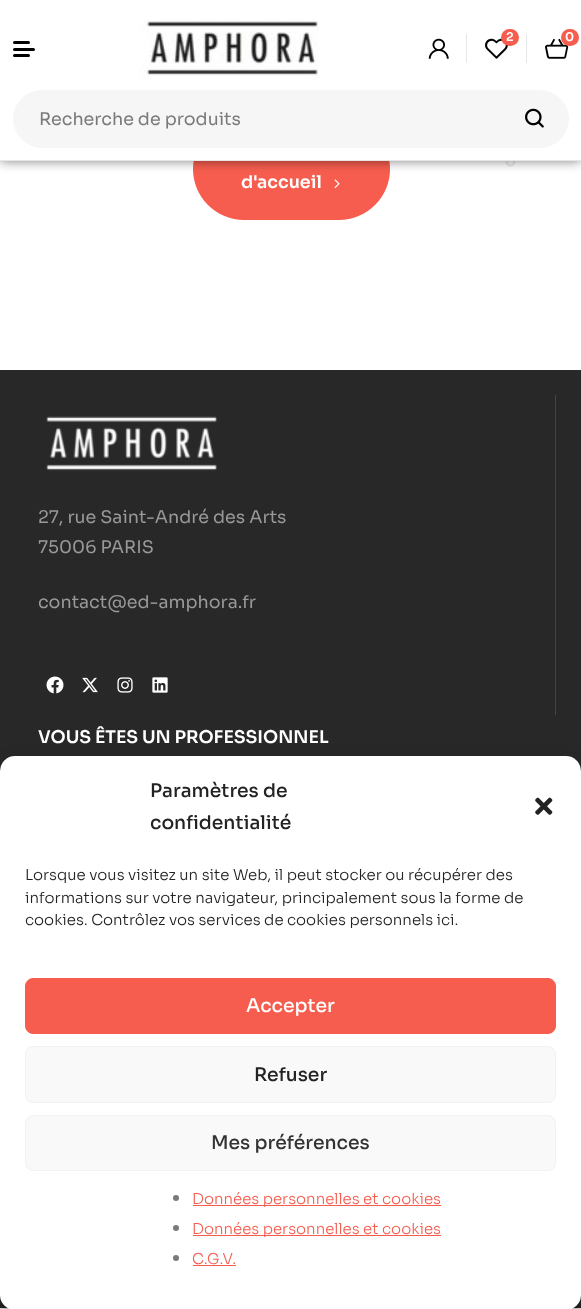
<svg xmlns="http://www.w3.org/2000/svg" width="581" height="1309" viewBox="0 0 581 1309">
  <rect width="100%" height="100%" fill="#fff"/>
  <image x="505" y="161" width="11" height="6" href="img/6.png"/>
  <rect x="193" y="118" width="197" height="102" rx="51" fill="#f65d4e"/>
  <image x="334" y="179" width="6" height="10" href="img/7.png"/>
  <path d="M0 0h581v161H0z" fill="#00000080" filter="blur(6px)"/>
  <path d="M0 0h581v160H0z" fill="#fff"/>
  <image x="140" y="20" width="179" height="61" href="img/1.png"/>
  <path d="M466 34h1v29H466z" fill="#e6e6e6"/>
  <image x="428" y="38" width="21" height="21" href="img/2.png"/>
  <path d="M526 34h1v29H526z" fill="#e6e6e6"/>
  <image x="485" y="38" width="23" height="21" href="img/3.png"/>
  <rect x="501" y="29" width="18" height="17" rx="8.5" fill="#f65d4e"/>
  <image x="545" y="38" width="24" height="21" href="img/4.png"/>
  <rect x="561" y="29" width="18" height="17" rx="8.5" fill="#f65d4e"/>
  <rect x="13" y="41" width="17" height="3" rx="1.5" fill="#000"/>
  <rect x="13" y="48" width="22" height="3" rx="1.5" fill="#000"/>
  <rect x="13" y="54" width="17" height="3" rx="1.5" fill="#000"/>
  <rect x="13" y="90" width="556" height="58" rx="29" fill="#f6f6f6"/>
  <image x="525" y="108" width="19" height="20" href="img/5.png"/>
  <path d="M0 160h581v1H0z" fill="#e6e6e6"/>
  <path d="M0 370h581v401H0z" fill="#282828"/>
  <path d="M555 395h1v320H555z" fill="#444"/>
  <image x="46" y="416" width="171" height="55" href="img/8.png"/>
  <image x="46" y="676" width="18" height="18" href="img/9.png"/>
  <image x="82" y="677" width="16" height="16" href="img/10.png"/>
  <image x="117" y="677" width="16" height="16" href="img/11.png"/>
  <image x="152" y="677" width="16" height="16" href="img/12.png"/>
  <path d="M0 1295h581v13H0z" fill="#282828"/>
  <rect y="764" width="581" height="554" rx="15" fill="#0000003b" filter="blur(4px)"/>
  <rect y="769" width="581" height="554" rx="15" fill="#00000030" filter="blur(12.5px)"/>
  <rect y="756" width="581" height="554" rx="15" fill="#fff"/>
  <image x="535" y="797" width="18" height="18" href="img/13.png"/>
  <rect x="25.5" y="978.5" width="530" height="55" rx="7.5" fill="#f65d4e" stroke="#f65d4e"/>
  <rect x="25.5" y="1046.5" width="530" height="56" rx="7.5" fill="#f9f9f9" stroke="#f2f2f2"/>
  <rect x="25.5" y="1115.5" width="530" height="55" rx="7.5" fill="#f9f9f9" stroke="#f2f2f2"/>
  <circle cx="176" cy="1198" r="3" fill="#7a7a7a"/>
  <path d="M193 1205h248v1H193z" fill="#f65d4e"/>
  <circle cx="176" cy="1228" r="3" fill="#7a7a7a"/>
  <path d="M193 1235h248v1H193z" fill="#f65d4e"/>
  <circle cx="176" cy="1258" r="3" fill="#7a7a7a"/>
  <path d="M193 1265h43v1H193z" fill="#f65d4e"/>
  <g font-family="Sora" font-size="12" font-weight="600" fill="#fff">
    <text x="506" y="41">2</text>
    <text x="565" y="41">0</text>
  </g>
  <text x="39" y="125" font-family="Sora" font-size="17.5" fill="#7a7a7a">Recherche de produits</text>
  <text x="241" y="188" font-family="Sora" font-size="17.5" font-weight="600" fill="#fff">d'accueil</text>
  <g font-family="Sora" font-size="17.5" fill="#999">
    <text x="38" y="523">27, rue Saint-André des Arts</text>
    <text x="38" y="553">75006 PARIS</text>
    <text x="38" y="608">contact@ed-amphora.fr</text>
  </g>
  <text x="38" y="743" font-family="Sora" font-size="17.5" font-weight="600" fill="#fff">VOUS ÊTES UN PROFESSIONNEL</text>
  <g font-family="Sora" font-size="18.75" font-weight="500" fill="#222">
    <text x="150" y="797">Paramètres de</text>
    <text x="150" y="829">confidentialité</text>
  </g>
  <g font-family="Sora" font-size="15" font-weight="300" fill="#222">
    <text x="25" y="880">Lorsque vous visitez un site Web, il peut stocker ou récupérer des</text>
    <text x="25" y="903">informations sur votre navigateur, principalement sous la forme de</text>
    <text x="25" y="925">cookies. Contrôlez vos services de cookies personnels ici.</text>
  </g>
  <text x="246" y="1012" font-family="Sora" font-size="18.75" font-weight="500" fill="#fff">Accepter</text>
  <text x="254" y="1081" font-family="Sora" font-size="18.75" font-weight="500" fill="#222">Refuser</text>
  <text x="211" y="1149" font-family="Sora" font-size="18.75" font-weight="500" fill="#333">Mes préférences</text>
  <g font-family="Sora" font-size="15" font-weight="300" fill="#f65d4e">
    <text x="192" y="1204">Données personnelles et cookies</text>
    <text x="192" y="1234">Données personnelles et cookies</text>
    <text x="192" y="1264">C.G.V.</text>
  </g>
</svg>
